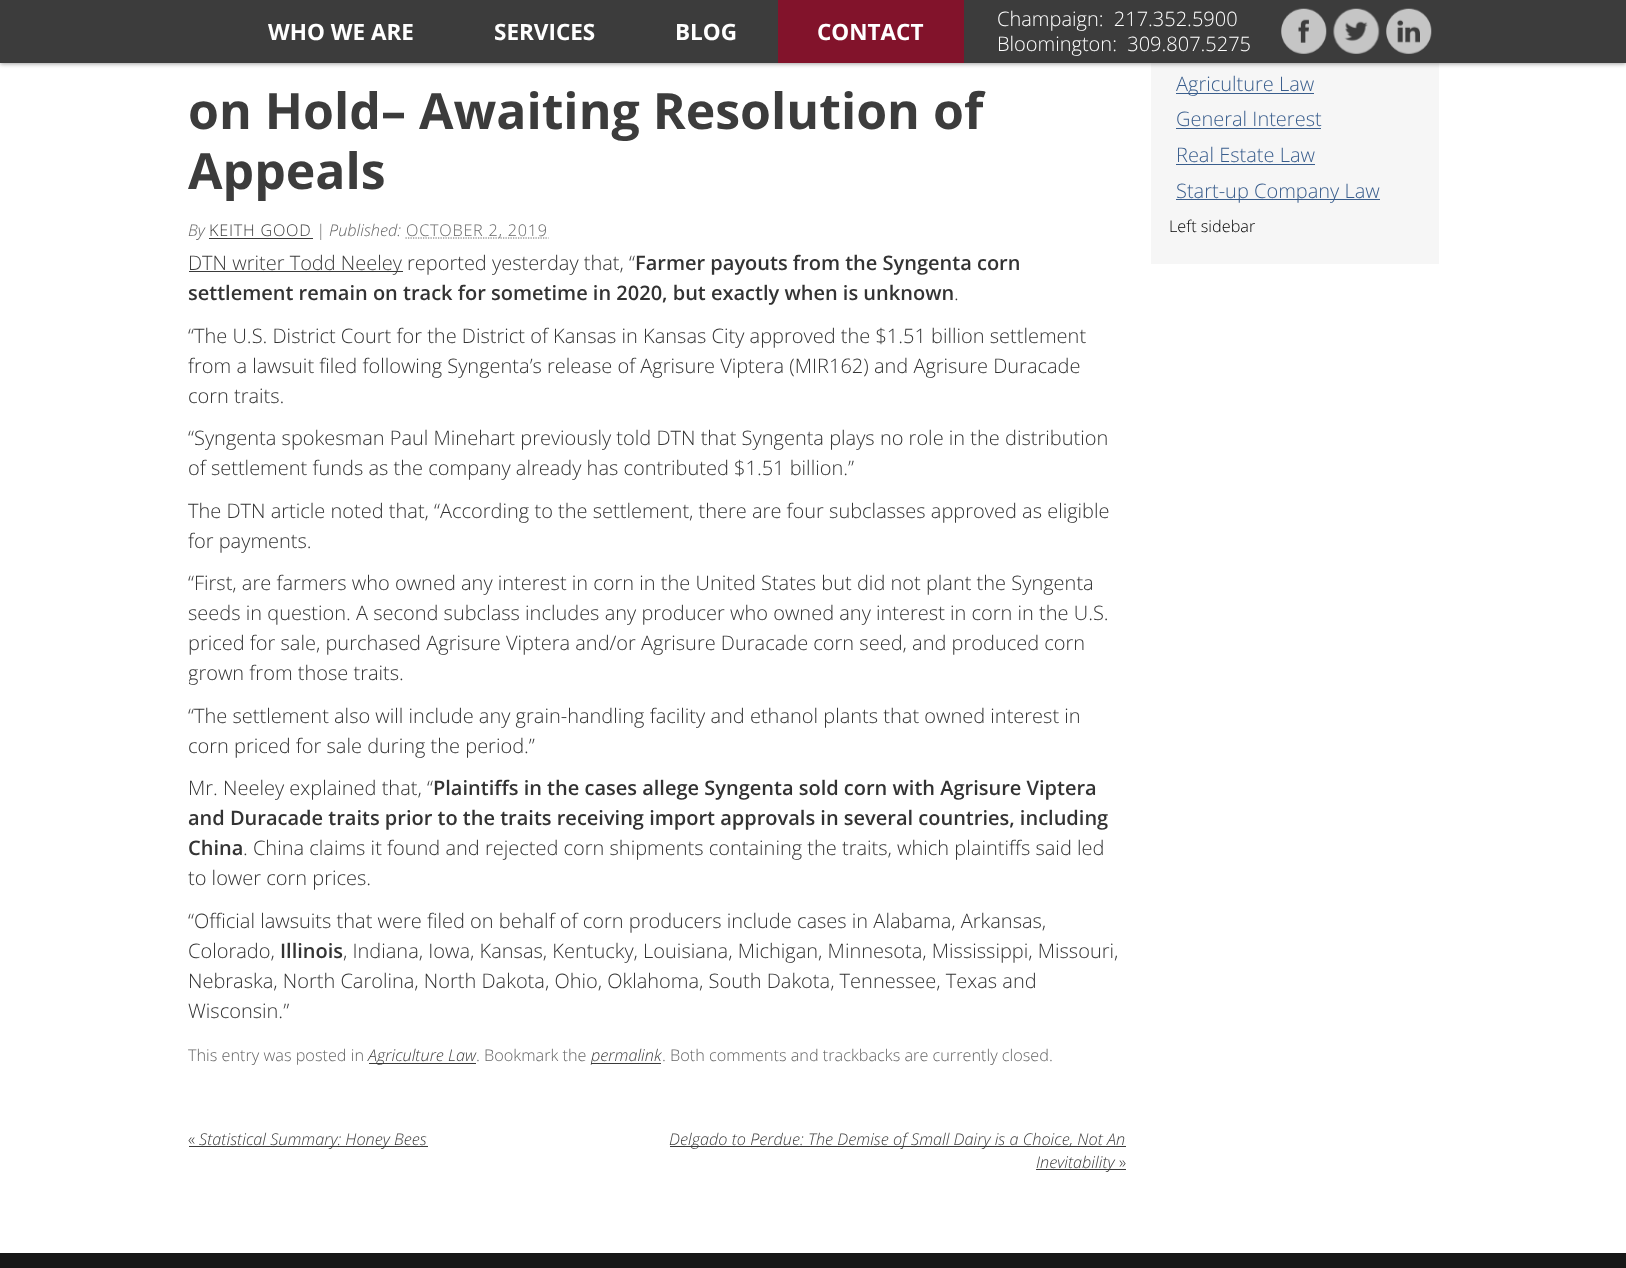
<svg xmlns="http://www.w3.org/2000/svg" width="1626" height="1268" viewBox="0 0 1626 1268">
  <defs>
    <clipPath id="clip1"><path d="M189 5h937v1223H189z"/></clipPath>
  </defs>
  <rect width="100%" height="100%" fill="#fff"/>
  <path d="M1151 63h288v201H1151z" fill="#f6f6f6"/>
  <path d="M0 1h1626v63H0z" fill="#64646499" filter="blur(2px)"/>
  <path d="M0 0h1626v63H0z" fill="#3c3c3c"/>
  <path d="M778 0h186v63H778z" fill="#82132b"/>
  <image x="1281" y="8" width="46" height="46" href="img/1.png"/>
  <image x="1333" y="8" width="47" height="46" href="img/2.png"/>
  <image x="1386" y="8" width="46" height="46" href="img/3.png"/>
  <path d="M209 238h104v1H209z" fill="#3a3a3a"/>
  <path d="M405.5 238H548.5" fill="none" stroke="#666" stroke-width="1.2" stroke-dasharray="1.25 1.25"/>
  <path d="M189 271h214v1H189z" fill="#3a3a3a"/>
  <path d="M369 1063h107v1H369z" fill="#3a3a3a"/>
  <path d="M591 1063h70v1H591z" fill="#3a3a3a"/>
  <path d="M189 1146h239v1H189z" fill="#3a3a3a"/>
  <path d="M670 1146h456v1H670z" fill="#3a3a3a"/>
  <path d="M1036 1169h90v1H1036z" fill="#3a3a3a"/>
  <path d="M1176 93h138v1H1176z" fill="#3a5e8d"/>
  <path d="M1176 128h145v1H1176z" fill="#3a5e8d"/>
  <path d="M1176 164h139v1H1176z" fill="#3a5e8d"/>
  <path d="M1176 199h204v1H1176z" fill="#3a5e8d"/>
  <path d="M0 1253h1626v15H0z" fill="#171717"/>
  <g font-family="Open Sans" font-size="22.5" font-weight="bold" fill="#fff">
    <text x="268" y="40">WHO WE ARE</text>
    <text x="494" y="40">SERVICES</text>
    <text x="675" y="40">BLOG</text>
    <text x="817" y="40">CONTACT</text>
  </g>
  <g font-family="Open Sans" font-size="20" font-weight="300" fill="#fff">
    <text x="997" y="26" xml:space="preserve">Champaign:  217.352.5900</text>
    <text x="997" y="51" xml:space="preserve">Bloomington:  309.807.5275</text>
  </g>
  <g font-family="Open Sans" font-size="50" font-weight="bold" fill="#3c3c3c">
    <text x="188" y="129">on Hold– Awaiting Resolution of</text>
    <text x="188" y="189">Appeals</text>
  </g>
  <text x="188" y="236" font-family="Open Sans" font-size="16.25" font-weight="300" font-style="italic" fill="#666">By</text>
  <text x="209" y="236" font-family="Open Sans" font-size="16.25" font-weight="300" letter-spacing="0.75" fill="#3c3c3c">KEITH GOOD</text>
  <text x="316" y="236" font-family="Open Sans" font-size="16.25" font-weight="300" font-style="italic" fill="#666">| Published:</text>
  <text x="406" y="236" font-family="Open Sans" font-size="16.25" font-weight="300" letter-spacing="0.75" fill="#666">OCTOBER 2, 2019</text>
  <text x="188" y="270" font-family="Open Sans" font-size="20" font-weight="300" fill="#3c3c3c">DTN writer Todd Neeley</text>
  <text x="407" y="270" font-family="Open Sans" font-size="20" font-weight="300" fill="#333">reported yesterday that, “</text>
  <g font-family="Open Sans" font-size="20" font-weight="600" fill="#333">
    <text x="635" y="270">Farmer payouts from the Syngenta corn</text>
    <text x="188" y="300">settlement remain on track for sometime in 2020, but exactly when is unknown</text>
  </g>
  <g font-family="Open Sans" font-size="20" font-weight="300" fill="#333">
    <text x="954" y="300">.</text>
    <text x="188" y="343">“The U.S. District Court for the District of Kansas in Kansas City approved the $1.51 billion settlement</text>
    <text x="188" y="373">from a lawsuit filed following Syngenta’s release of Agrisure Viptera (MIR162) and Agrisure Duracade</text>
    <text x="188" y="403">corn traits.</text>
    <text x="188" y="445">“Syngenta spokesman Paul Minehart previously told DTN that Syngenta plays no role in the distribution</text>
    <text x="188" y="475">of settlement funds as the company already has contributed $1.51 billion.”</text>
    <text x="188" y="518">The DTN article noted that, “According to the settlement, there are four subclasses approved as eligible</text>
    <text x="188" y="548">for payments.</text>
    <text x="188" y="590">“First, are farmers who owned any interest in corn in the United States but did not plant the Syngenta</text>
    <text x="188" y="620">seeds in question. A second subclass includes any producer who owned any interest in corn in the U.S.</text>
    <text x="188" y="650">priced for sale, purchased Agrisure Viptera and/or Agrisure Duracade corn seed, and produced corn</text>
  </g>
  <g clip-path="url(#clip1)">
    <text x="188" y="680" font-family="Open Sans" font-size="20" font-weight="300" fill="#333">grown from those traits.</text>
  </g>
  <g font-family="Open Sans" font-size="20" font-weight="300" fill="#333">
    <text x="188" y="723">“The settlement also will include any grain-handling facility and ethanol plants that owned interest in</text>
    <text x="188" y="753">corn priced for sale during the period.”</text>
    <text x="188" y="795">Mr. Neeley explained that, “</text>
  </g>
  <g font-family="Open Sans" font-size="20" font-weight="600" fill="#333">
    <text x="433" y="795">Plaintiffs in the cases allege Syngenta sold corn with Agrisure Viptera</text>
    <text x="188" y="825">and Duracade traits prior to the traits receiving import approvals in several countries, including</text>
    <text x="188" y="855">China</text>
  </g>
  <g font-family="Open Sans" font-size="20" font-weight="300" fill="#333">
    <text x="243" y="855">. China claims it found and rejected corn shipments containing the traits, which plaintiffs said led</text>
    <text x="188" y="885">to lower corn prices.</text>
    <text x="188" y="928">“Official lawsuits that were filed on behalf of corn producers include cases in Alabama, Arkansas,</text>
    <text x="188" y="958">Colorado,</text>
  </g>
  <text x="280" y="958" font-family="Open Sans" font-size="20" font-weight="600" fill="#333">Illinois</text>
  <g font-family="Open Sans" font-size="20" font-weight="300" fill="#333">
    <text x="343" y="958">, Indiana, Iowa, Kansas, Kentucky, Louisiana, Michigan, Minnesota, Mississippi, Missouri,</text>
    <text x="188" y="988">Nebraska, North Carolina, North Dakota, Ohio, Oklahoma, South Dakota, Tennessee, Texas and</text>
    <text x="188" y="1018">Wisconsin.”</text>
  </g>
  <text x="188" y="1061" font-family="Open Sans" font-size="16.25" font-weight="300" fill="#666">This entry was posted in</text>
  <text x="368" y="1061" font-family="Open Sans" font-size="16.25" font-weight="300" font-style="italic" fill="#3c3c3c">Agriculture Law</text>
  <text x="476" y="1061" font-family="Open Sans" font-size="16.25" font-weight="300" fill="#666">. Bookmark the</text>
  <text x="591" y="1061" font-family="Open Sans" font-size="16.25" font-weight="300" font-style="italic" fill="#3c3c3c">permalink</text>
  <text x="662" y="1061" font-family="Open Sans" font-size="16.25" font-weight="300" fill="#666">. Both comments and trackbacks are currently closed.</text>
  <text x="188" y="1145" font-family="Open Sans" font-size="16.25" font-weight="300" fill="#3c3c3c">«</text>
  <g font-family="Open Sans" font-size="16.25" font-weight="300" font-style="italic" fill="#3c3c3c">
    <text x="199" y="1145">Statistical Summary: Honey Bees</text>
    <text x="669" y="1145">Delgado to Perdue: The Demise of Small Dairy is a Choice, Not An</text>
    <text x="1036" y="1168">Inevitability</text>
  </g>
  <text x="1119" y="1168" font-family="Open Sans" font-size="16.25" font-weight="300" fill="#3c3c3c">»</text>
  <g font-family="Open Sans" font-size="20" font-weight="300" fill="#3a5e8d">
    <text x="1176" y="91">Agriculture Law</text>
    <text x="1176" y="126">General Interest</text>
    <text x="1176" y="162">Real Estate Law</text>
    <text x="1176" y="198">Start-up Company Law</text>
  </g>
  <text x="1169" y="232" font-family="Open Sans" font-size="16.25" font-weight="300" fill="#000">Left sidebar</text>
</svg>
